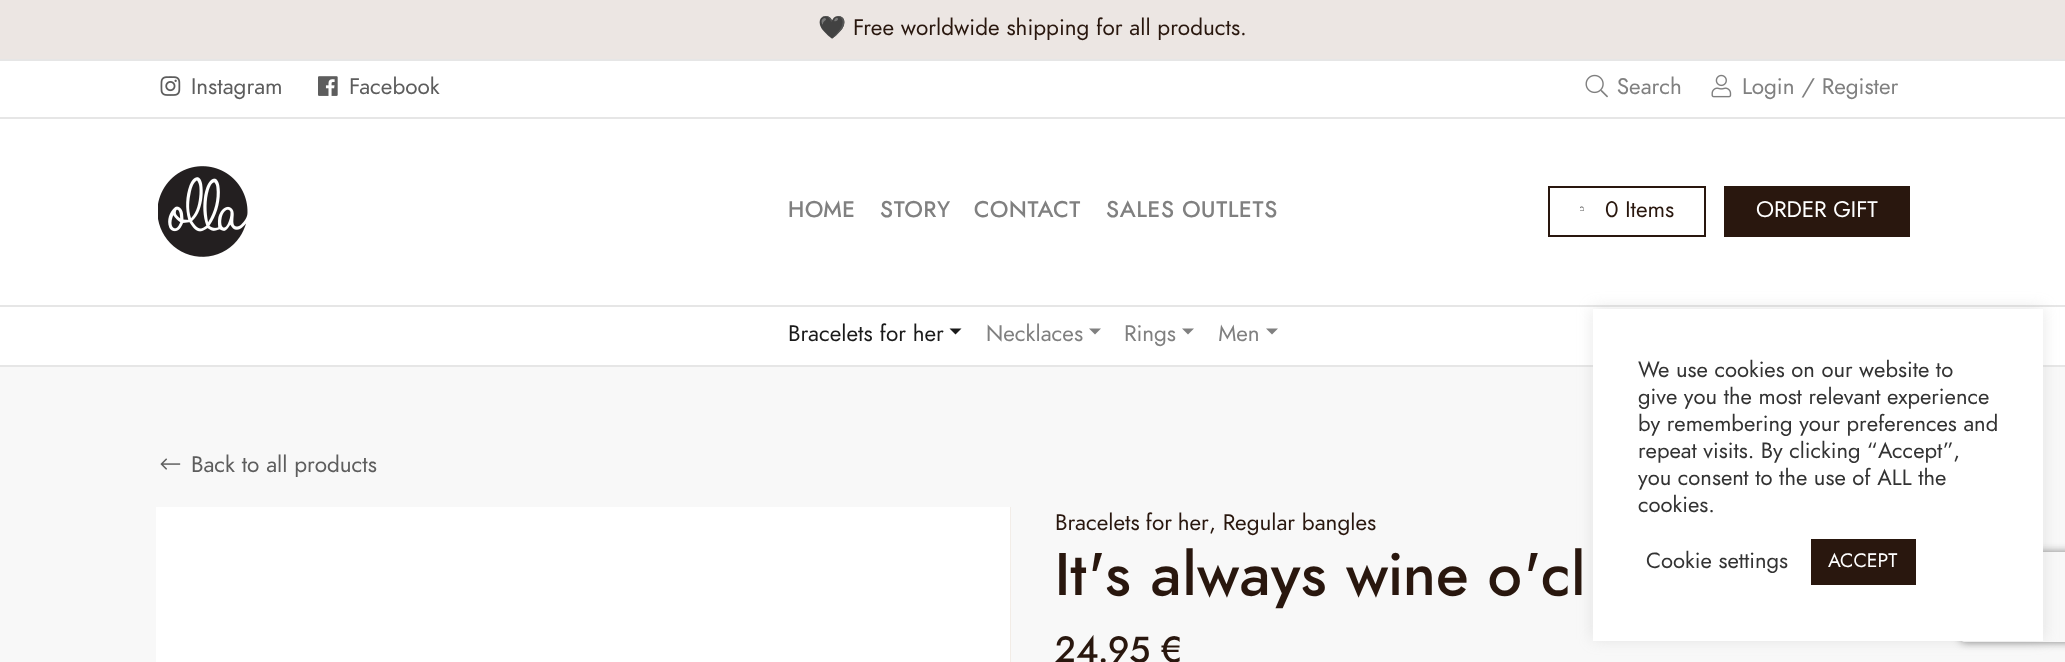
<svg xmlns="http://www.w3.org/2000/svg" width="2065" height="662" viewBox="0 0 2065 662">
  <defs>
    <clipPath id="clip1"><path d="M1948 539H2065V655H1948ZM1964 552H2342C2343.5 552 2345 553.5 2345 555V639C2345 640.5 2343.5 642 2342 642H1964C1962.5 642 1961 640.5 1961 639V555C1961 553.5 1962.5 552 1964 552Z" clip-rule="evenodd"/></clipPath>
  </defs>
  <rect width="100%" height="100%" fill="#f8f8f8"/>
  <path d="M0 61h2065v304H0z" fill="#fff"/>
  <path d="M0 0h2065v59H0z" fill="#ece6e3"/>
  <path d="M0 59h2065v2H0z" fill="#e6e6e6"/>
  <path d="M0 117h2065v2H0z" fill="#e6e6e6"/>
  <image x="160" y="76" width="21" height="20" href="img/1.png"/>
  <image x="318" y="76" width="20" height="20" href="img/2.png"/>
  <image x="1585" y="74" width="23" height="24" href="img/3.png"/>
  <image x="1711" y="74" width="21" height="24" href="img/4.png"/>
  <image x="158" y="166" width="90" height="91" href="img/5.png"/>
  <path d="M1549 187h156v49H1549z" fill="none" stroke="#29170e" stroke-width="2"/>
  <image x="1580" y="206" width="4" height="5" href="img/6.png"/>
  <path d="M1724 186h186v51H1724z" fill="#29170e"/>
  <path d="M0 305h2065v2H0z" fill="#e6e6e6"/>
  <path d="M0 365h2065v2H0z" fill="#e6e6e6"/>
  <path d="M949.5 328.5H961.5L955.5 334.5Z" fill="#1a1a1a"/>
  <path d="M1089 328.5H1101L1095 334.5Z" fill="#808080"/>
  <path d="M1182 328.5H1194L1188 334.5Z" fill="#808080"/>
  <path d="M1266 328.5H1278L1272 334.5Z" fill="#808080"/>
  <image x="160" y="458" width="21" height="12" href="img/7.png"/>
  <path d="M156 507h855v155H156z" fill="#fff"/>
  <image x="1010" y="507" width="1" height="155" href="img/8.png"/>
  <path d="M1593 308h450v331H1593z" fill="#acabab4d" filter="blur(7.5px)"/>
  <g clip-path="url(#clip1)">
    <rect x="1961" y="552" width="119" height="90" rx="3" fill="#808080" filter="blur(4px)"/>
  </g>
  <path d="M1593 309h450v332H1593z" fill="#fff"/>
  <path d="M1811 539h105v46H1811z" fill="#29170e"/>
  <text x="818" y="35" font-family="Noto Color Emoji" font-size="22.5" fill="#29170e">🖤</text>
  <text x="853" y="35" font-family="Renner" font-size="22.5" fill="#29170e">Free worldwide shipping for all products.</text>
  <g font-family="Renner" font-size="22.5" fill="#5d5d5d">
    <text x="191" y="94">Instagram</text>
    <text x="349" y="94">Facebook</text>
  </g>
  <g font-family="Renner" font-size="22.5" fill="#808080">
    <text x="1617" y="94">Search</text>
    <text x="1742" y="94">Login / Register</text>
  </g>
  <g font-family="Renner" font-size="22.5" font-weight="500" letter-spacing="0.75" fill="#808080">
    <text x="788" y="217">HOME</text>
    <text x="880" y="217">STORY</text>
    <text x="974" y="217">CONTACT</text>
    <text x="1106" y="217">SALES OUTLETS</text>
  </g>
  <text x="1605" y="217" font-family="Renner" font-size="22.5" fill="#29170e">0 Items</text>
  <text x="1756" y="217" font-family="Renner" font-size="22.5" fill="#fff">ORDER GIFT</text>
  <text x="788" y="341" font-family="Renner" font-size="22.5" fill="#1a1a1a">Bracelets for her</text>
  <g font-family="Renner" font-size="22.5" fill="#808080">
    <text x="986" y="341">Necklaces</text>
    <text x="1124" y="341">Rings</text>
    <text x="1218" y="341">Men</text>
  </g>
  <text x="191" y="472" font-family="Renner" font-size="22.5" fill="#5d5d5d">Back to all products</text>
  <g font-family="Renner" font-size="22.5" fill="#29170e">
    <text x="1055" y="530" word-spacing="-1">Bracelets for her</text>
    <text x="1209" y="530">, Regular bangles</text>
  </g>
  <text x="1055" y="595" font-family="Renner" font-size="60" font-weight="500" letter-spacing="0.75" fill="#29170e">It's always wine o'cl</text>
  <text x="1055" y="662" font-family="Renner" font-size="36" font-weight="500" letter-spacing="0.75" fill="#29170e">24.95 €</text>
  <g font-family="Renner" font-size="22" fill="#333">
    <text x="1638" y="377">We use cookies on our website to</text>
    <text x="1638" y="404">give you the most relevant experience</text>
    <text x="1638" y="431">by remembering your preferences and</text>
    <text x="1638" y="458">repeat visits. By clicking “Accept”,</text>
    <text x="1638" y="485">you consent to the use of ALL the</text>
    <text x="1638" y="512">cookies.</text>
    <text x="1646" y="568">Cookie settings</text>
  </g>
  <text x="1828" y="567" font-family="Renner" font-size="19.5" fill="#fff">ACCEPT</text>
</svg>
